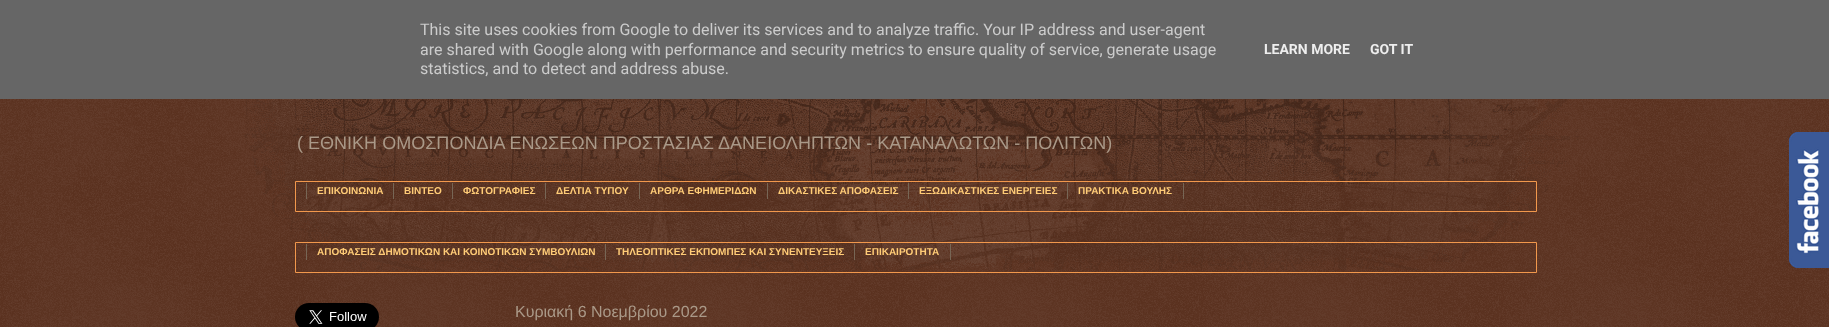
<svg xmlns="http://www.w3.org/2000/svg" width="1829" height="327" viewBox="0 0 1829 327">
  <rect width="100%" height="100%" fill="#441500"/>
  <image x="0" y="99" width="1829" height="228" href="img/1.png"/>
  <path d="M0 0h1829v99H0z" fill="#666"/>
  <image x="243" y="99" width="1341" height="171" href="img/2.png"/>
  <path d="M295.5 181.5h1241v30H295.5z" fill="none" stroke="#f2984c"/>
  <path d="M393 183h1v16H393z" fill="#765"/>
  <path d="M306 183h1v16H306z" fill="#765"/>
  <path d="M452 183h1v16H452z" fill="#765"/>
  <path d="M545 183h1v16H545z" fill="#765"/>
  <path d="M639 183h1v16H639z" fill="#765"/>
  <path d="M767 183h1v16H767z" fill="#765"/>
  <path d="M908 183h1v16H908z" fill="#765"/>
  <path d="M1067 183h1v16H1067z" fill="#765"/>
  <path d="M1183 183h1v16H1183z" fill="#765"/>
  <path d="M295.5 242.5h1241v30H295.5z" fill="none" stroke="#f2984c"/>
  <path d="M605 244h1v16H605z" fill="#765"/>
  <path d="M306 244h1v16H306z" fill="#765"/>
  <path d="M854 244h1v16H854z" fill="#765"/>
  <path d="M950 244h1v16H950z" fill="#765"/>
  <image x="1789" y="132" width="40" height="136" href="img/3.png"/>
  <image x="1789" y="132" width="9" height="136" href="img/4.png"/>
  <image x="295" y="303" width="84" height="24" href="img/5.png"/>
  <g font-family="Roboto" font-size="16" fill="#ccc">
    <text x="420" y="35">This site uses cookies from Google to deliver its services and to analyze traffic. Your IP address and user-agent</text>
    <text x="420" y="55">are shared with Google along with performance and security metrics to ensure quality of service, generate usage</text>
    <text x="420" y="74">statistics, and to detect and address abuse.</text>
  </g>
  <g font-family="Roboto" font-size="14" font-weight="bold" fill="#eee">
    <text x="1264" y="54">LEARN MORE</text>
    <text x="1370" y="54">GOT IT</text>
  </g>
  <text x="297" y="149" font-family="Liberation Sans" font-size="18.05" fill="#a98">( ΕΘΝΙΚΗ ΟΜΟΣΠΟΝΔΙΑ ΕΝΩΣΕΩΝ ΠΡΟΣΤΑΣΙΑΣ ΔΑΝΕΙΟΛΗΠΤΩΝ - ΚΑΤΑΝΑΛΩΤΩΝ - ΠΟΛΙΤΩΝ)</text>
  <g font-family="Liberation Sans" font-size="10" font-weight="bold" fill="#fc7">
    <text x="317" y="194">ΕΠΙΚΟΙΝΩΝΙΑ</text>
    <text x="404" y="194">ΒΙΝΤΕΟ</text>
    <text x="463" y="194">ΦΩΤΟΓΡΑΦΙΕΣ</text>
    <text x="556" y="194">ΔΕΛΤΙΑ ΤΥΠΟΥ</text>
    <text x="650" y="194">ΑΡΘΡΑ ΕΦΗΜΕΡΙΔΩΝ</text>
    <text x="778" y="194">ΔΙΚΑΣΤΙΚΕΣ ΑΠΟΦΑΣΕΙΣ</text>
    <text x="919" y="194">ΕΞΩΔΙΚΑΣΤΙΚΕΣ ΕΝΕΡΓΕΙΕΣ</text>
    <text x="1078" y="194">ΠΡΑΚΤΙΚΑ ΒΟΥΛΗΣ</text>
    <text x="317" y="255">ΑΠΟΦΑΣΕΙΣ ΔΗΜΟΤΙΚΩΝ ΚΑΙ ΚΟΙΝΟΤΙΚΩΝ ΣΥΜΒΟΥΛΙΩΝ</text>
    <text x="616" y="255">ΤΗΛΕΟΠΤΙΚΕΣ ΕΚΠΟΜΠΕΣ ΚΑΙ ΣΥΝΕΝΤΕΥΞΕΙΣ</text>
    <text x="865" y="255">ΕΠΙΚΑΙΡΟΤΗΤΑ</text>
  </g>
  <text x="515" y="317" font-family="Liberation Sans" font-size="16" fill="#a98">Κυριακή 6 Νοεμβρίου 2022</text>
</svg>
